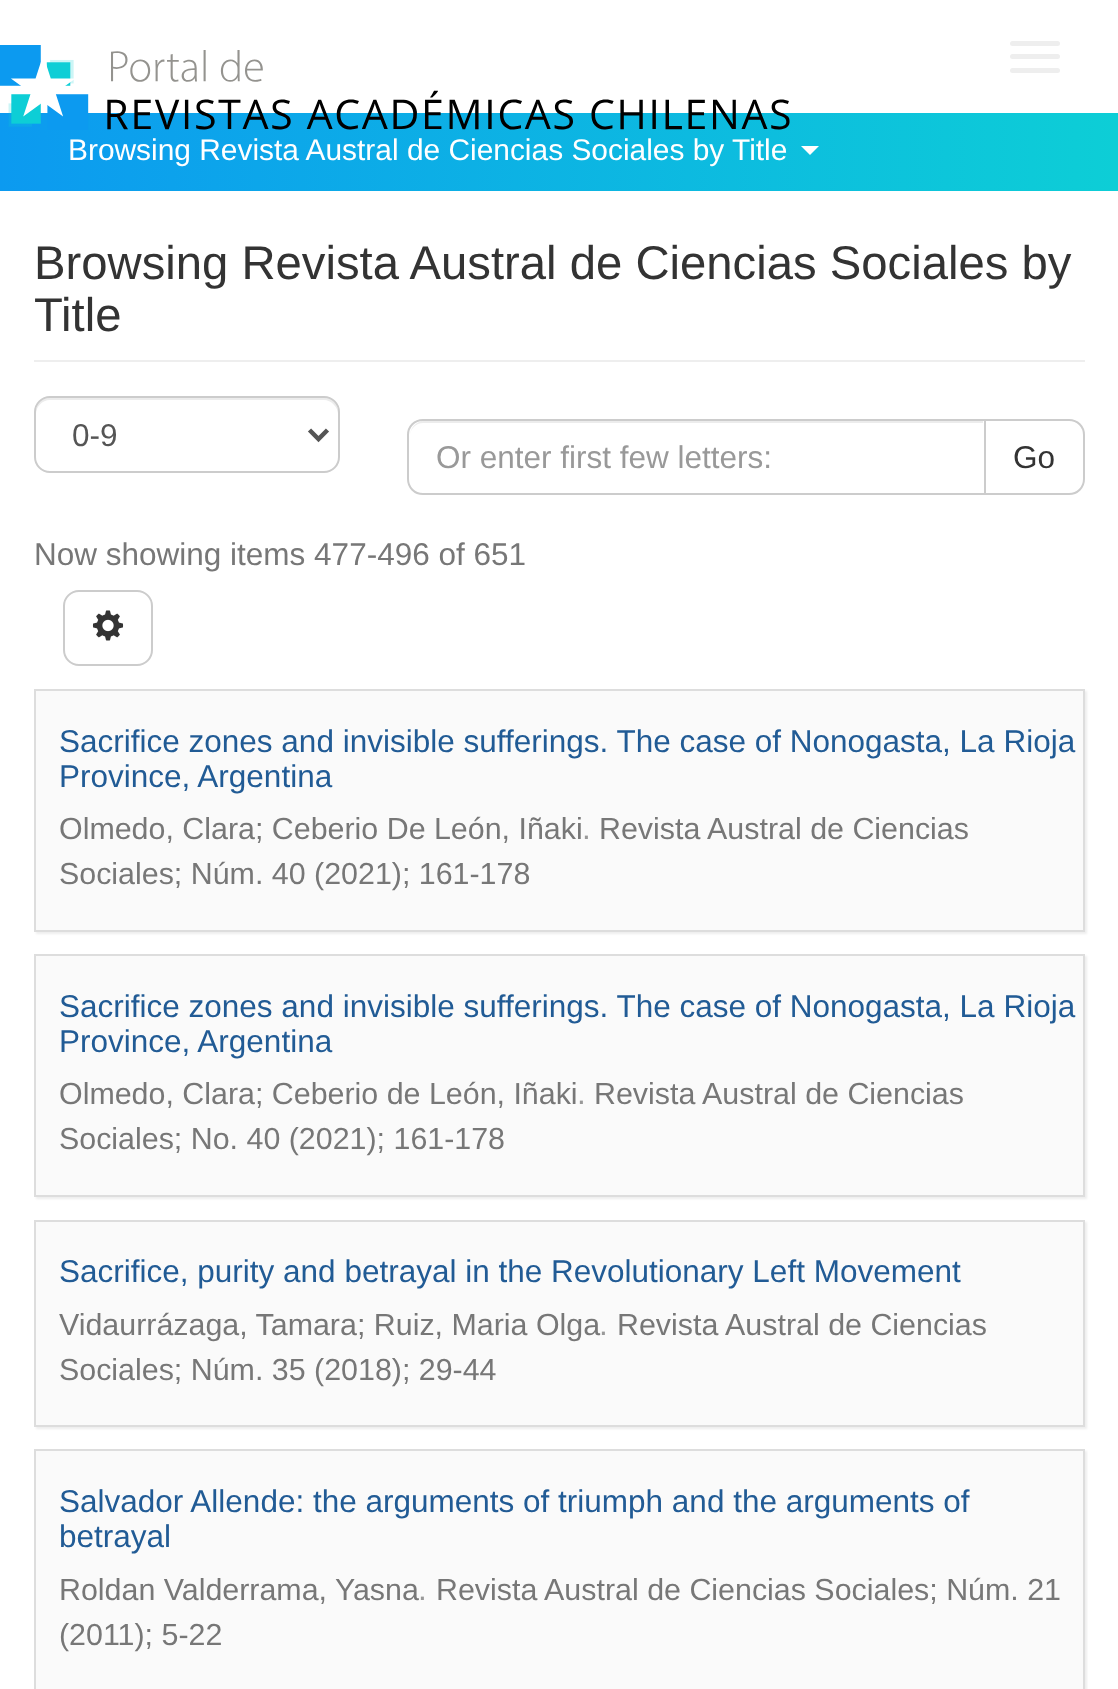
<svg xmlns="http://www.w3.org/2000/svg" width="1118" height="1689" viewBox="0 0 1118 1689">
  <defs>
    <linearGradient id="g1" gradientUnits="userSpaceOnUse" x1="0" y1="152" x2="1118" y2="152"><stop offset="0" stop-color="#0c9af0"/><stop offset="1" stop-color="#0dced6"/></linearGradient>
    <clipPath id="clip1"><path d="M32 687H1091V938H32ZM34 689H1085V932H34Z" clip-rule="evenodd"/></clipPath>
    <clipPath id="clip2"><path d="M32 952H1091V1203H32ZM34 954H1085V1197H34Z" clip-rule="evenodd"/></clipPath>
    <clipPath id="clip3"><path d="M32 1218H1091V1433H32ZM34 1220H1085V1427H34Z" clip-rule="evenodd"/></clipPath>
    <clipPath id="clip4"><path d="M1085 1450h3v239H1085z"/></clipPath>
  </defs>
  <rect width="100%" height="100%" fill="#fff"/>
  <path d="M0 113h1118v78H0z" fill="url(#g1)"/>
  <image x="0" y="45" width="790" height="85" href="img/1.png"/>
  <rect x="1010" y="41" width="50" height="5" rx="2.5" fill="#eee"/>
  <rect x="1010" y="54" width="50" height="5" rx="2.5" fill="#eee"/>
  <rect x="1010" y="68" width="50" height="5" rx="2.5" fill="#eee"/>
  <path d="M801 146H819L810 155Z" fill="#fff"/>
  <path d="M34 360h1051v2H34z" fill="#eee"/>
  <path d="M50 400H324C331 400 338 407 338 414V412C338 404 332 398 324 398H50C42 398 36 404 36 412V414C36 407 42 400 50 400Z" fill="#ececec"/>
  <rect x="35" y="397" width="304" height="75" rx="15" fill="none" stroke="#ccc" stroke-width="2"/>
  <path d="M309.5 430L318.5 439L327.5 430" fill="none" stroke="#555" stroke-width="4.5"/>
  <path d="M984 420H1069C1077.5 420 1084 426.5 1084 435V479C1084 487.5 1077.5 494 1069 494H984Z" fill="none" stroke="#ccc" stroke-width="2"/>
  <path d="M423 419H986V495H423C414 495 407 488 407 479V435C407 426 414 419 423 419Z" fill="#fff"/>
  <path d="M423 423H983V421H424C416 421 410 428 410 436C410 429 416 423 423 423Z" fill="#ececec"/>
  <path d="M423 420H985V494H423C414.5 494 408 487.5 408 479V435C408 426.5 414.5 420 423 420Z" fill="none" stroke="#ccc" stroke-width="2"/>
  <rect x="64" y="591" width="88" height="74" rx="15" fill="none" stroke="#ccc" stroke-width="2"/>
  <image x="92" y="610" width="32" height="31" href="img/2.png"/>
  <g clip-path="url(#clip1)">
    <path d="M36 691h1051v243H36z" fill="#aaaaaa36" filter="blur(1px)"/>
  </g>
  <path d="M35 690h1049v241H35z" fill="#e6e6e636" stroke="#ddd" stroke-width="2"/>
  <g clip-path="url(#clip2)">
    <path d="M36 956h1051v243H36z" fill="#aaaaaa36" filter="blur(1px)"/>
  </g>
  <path d="M35 955h1049v241H35z" fill="#e6e6e636" stroke="#ddd" stroke-width="2"/>
  <g clip-path="url(#clip3)">
    <path d="M36 1222h1051v207H36z" fill="#aaaaaa36" filter="blur(1px)"/>
  </g>
  <path d="M35 1221h1049v205H35z" fill="#e6e6e636" stroke="#ddd" stroke-width="2"/>
  <g clip-path="url(#clip4)">
    <path d="M36 1451h1051v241H36z" fill="#aaaaaa36" filter="blur(1px)"/>
  </g>
  <path d="M35 1450h1049v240H35z" fill="#e6e6e636" stroke="#ddd" stroke-width="2"/>
  <text x="68" y="160" font-family="Liberation Sans" font-size="29.9" fill="#fff">Browsing Revista Austral de Ciencias Sociales by Title</text>
  <g font-family="Liberation Sans" font-size="47.25" fill="#333">
    <text x="34" y="279">Browsing Revista Austral de Ciencias Sociales by</text>
    <text x="34" y="331">Title</text>
  </g>
  <text x="72" y="446" font-family="Liberation Sans" font-size="31.5" fill="#555">0-9</text>
  <text x="436" y="468" font-family="Liberation Sans" font-size="31.5" fill="#999">Or enter first few letters:</text>
  <text x="1013" y="468" font-family="Liberation Sans" font-size="31.5" fill="#333">Go</text>
  <text x="34" y="565" font-family="Liberation Sans" font-size="31.5" fill="#777">Now showing items 477-496 of 651</text>
  <g font-family="Liberation Sans" font-size="31.5" fill="#215b95">
    <text x="59" y="752">Sacrifice zones and invisible sufferings. The case of Nonogasta, La Rioja</text>
    <text x="59" y="787">Province, Argentina</text>
  </g>
  <text x="59" y="839" font-family="Liberation Sans" font-size="30.4" fill="#777">Olmedo, Clara; Ceberio De León, Iñaki</text>
  <text x="582" y="839" font-family="Liberation Sans" font-size="31.5" fill="#999">.</text>
  <g font-family="Liberation Sans" font-size="30.4" fill="#777">
    <text x="599" y="839">Revista Austral de Ciencias</text>
    <text x="59" y="884">Sociales; Núm. 40 (2021); 161-178</text>
  </g>
  <g font-family="Liberation Sans" font-size="31.5" fill="#215b95">
    <text x="59" y="1017">Sacrifice zones and invisible sufferings. The case of Nonogasta, La Rioja</text>
    <text x="59" y="1052">Province, Argentina</text>
  </g>
  <text x="59" y="1104" font-family="Liberation Sans" font-size="30.4" fill="#777">Olmedo, Clara; Ceberio de León, Iñaki</text>
  <text x="577" y="1104" font-family="Liberation Sans" font-size="31.5" fill="#999">.</text>
  <g font-family="Liberation Sans" font-size="30.4" fill="#777">
    <text x="594" y="1104">Revista Austral de Ciencias</text>
    <text x="59" y="1149">Sociales; No. 40 (2021); 161-178</text>
  </g>
  <text x="59" y="1282" font-family="Liberation Sans" font-size="31.5" fill="#215b95">Sacrifice, purity and betrayal in the Revolutionary Left Movement</text>
  <text x="59" y="1335" font-family="Liberation Sans" font-size="30.4" fill="#777">Vidaurrázaga, Tamara; Ruiz, Maria Olga</text>
  <text x="599" y="1335" font-family="Liberation Sans" font-size="31.5" fill="#999">.</text>
  <g font-family="Liberation Sans" font-size="30.4" fill="#777">
    <text x="617" y="1335">Revista Austral de Ciencias</text>
    <text x="59" y="1380">Sociales; Núm. 35 (2018); 29-44</text>
  </g>
  <g font-family="Liberation Sans" font-size="31.5" fill="#215b95">
    <text x="59" y="1512">Salvador Allende: the arguments of triumph and the arguments of</text>
    <text x="59" y="1547">betrayal</text>
  </g>
  <text x="59" y="1600" font-family="Liberation Sans" font-size="30.4" fill="#777">Roldan Valderrama, Yasna</text>
  <text x="418" y="1600" font-family="Liberation Sans" font-size="31.5" fill="#999">.</text>
  <g font-family="Liberation Sans" font-size="30.4" fill="#777">
    <text x="436" y="1600">Revista Austral de Ciencias Sociales; Núm. 21</text>
    <text x="59" y="1645">(2011); 5-22</text>
  </g>
</svg>
